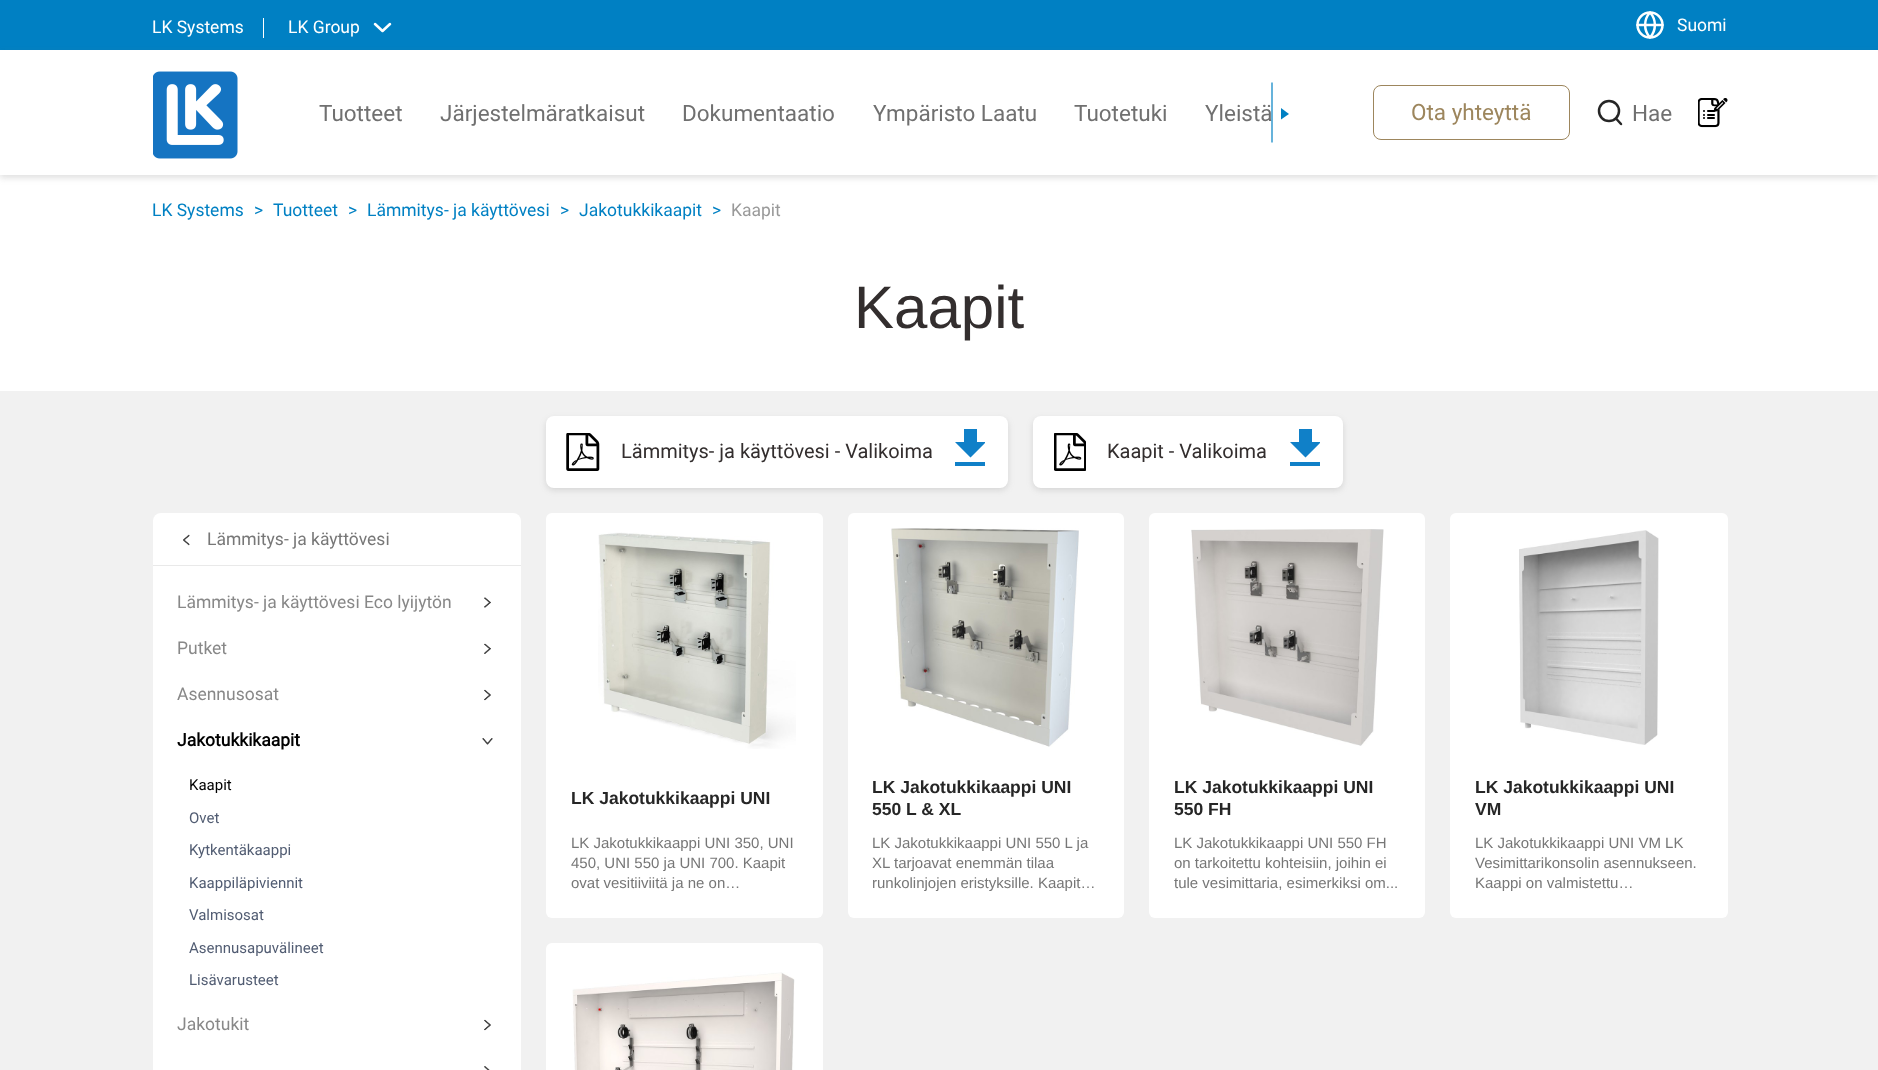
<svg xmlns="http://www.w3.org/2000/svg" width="1878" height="1070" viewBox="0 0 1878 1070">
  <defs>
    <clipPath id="clip1"><path d="M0 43H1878V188H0ZM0 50H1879V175H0Z" clip-rule="evenodd"/></clipPath>
    <clipPath id="clip2"><path d="M955 429h30v37H955z"/></clipPath>
    <clipPath id="clip3"><path d="M1290 429h30v37H1290z"/></clipPath>
  </defs>
  <rect width="100%" height="100%" fill="#fff"/>
  <path d="M0 0h1878v50H0z" fill="#0080c3"/>
  <path d="M263 18h1v20H263z" fill="#fff"/>
  <path d="M375 24L382.5 31L390 24" fill="none" stroke="#fff" stroke-width="2.5" stroke-linecap="round" stroke-linejoin="round"/>
  <circle cx="1650" cy="25" r="12.5" fill="none" stroke="#fff" stroke-width="2.5"/>
  <path d="M1637.5 25H1662.5M1650 12.5C1656.5 19.5 1656.5 30.5 1650 37.5C1643.5 30.5 1643.5 19.5 1650 12.5Z" fill="none" stroke="#fff" stroke-width="2.5" stroke-linecap="round" stroke-linejoin="round"/>
  <g clip-path="url(#clip1)">
    <path d="M0 53h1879v125H0z" fill="#63636333" filter="blur(3px)"/>
  </g>
  <image x="153" y="71" width="85" height="88" href="img/1.png"/>
  <path d="M1289 114L1281 119.5V108Z" fill="#0080c3"/>
  <rect x="1373.5" y="85.5" width="196" height="54" rx="7.5" fill="none" stroke="#9d865d"/>
  <circle cx="1609" cy="111" r="10" fill="none" stroke="#262626" stroke-width="2.5"/>
  <path d="M1621 124L1616 118.5" fill="none" stroke="#262626" stroke-width="2.5" stroke-linecap="round" stroke-linejoin="round"/>
  <image x="1698" y="98" width="30" height="30" href="img/2.png"/>
  <path d="M0 391h1878v679H0z" fill="#f1f1f1"/>
  <rect x="546" y="419" width="462" height="71" rx="8" fill="#63636333" filter="blur(3px)"/>
  <rect x="546" y="416" width="462" height="72" rx="8" fill="#fff"/>
  <image x="566" y="433" width="34" height="38" href="img/3.png"/>
  <g clip-path="url(#clip2)">
    <path d="M986 442H977V428.5H964V442H955L970.5 457.5ZM955 462V466.5H986V462Z" fill="#1080c8"/>
  </g>
  <rect x="1033" y="419" width="310" height="71" rx="8" fill="#63636333" filter="blur(3px)"/>
  <rect x="1033" y="416" width="310" height="72" rx="8" fill="#fff"/>
  <image x="1054" y="433" width="32" height="38" href="img/4.png"/>
  <g clip-path="url(#clip3)">
    <path d="M1321 442H1312V428.5H1299V442H1290L1305.5 457.5ZM1290 462V466.5H1321V462Z" fill="#1080c8"/>
  </g>
  <rect x="153" y="513" width="368" height="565" rx="8" fill="#fff"/>
  <path d="M153 565h368v1H153z" fill="#e9e9e9"/>
  <image x="183" y="534" width="7" height="12" href="img/5.png"/>
  <image x="484" y="597" width="7" height="11" href="img/6.png"/>
  <image x="484" y="643" width="7" height="11" href="img/7.png"/>
  <image x="484" y="689" width="7" height="12" href="img/8.png"/>
  <image x="482" y="738" width="11" height="7" href="img/9.png"/>
  <image x="484" y="1019" width="7" height="12" href="img/8.png"/>
  <image x="484" y="1066" width="6" height="4" href="img/10.png"/>
  <rect x="546" y="513" width="277" height="405" rx="6" fill="#fff"/>
  <image x="598" y="532" width="198" height="217" href="img/11.png"/>
  <rect x="848" y="513" width="276" height="405" rx="6" fill="#fff"/>
  <image x="891" y="528" width="188" height="219" href="img/12.png"/>
  <rect x="1149" y="513" width="276" height="405" rx="6" fill="#fff"/>
  <image x="1191" y="529" width="193" height="217" href="img/13.png"/>
  <rect x="1450" y="513" width="278" height="405" rx="6" fill="#fff"/>
  <image x="1519" y="530" width="140" height="215" href="img/14.png"/>
  <rect x="546" y="943" width="277" height="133" rx="6" fill="#fff"/>
  <image x="572" y="972" width="223" height="98" href="img/15.png"/>
  <g font-family="Roboto" font-size="17.5" fill="#fff">
    <text x="152" y="33">LK Systems</text>
    <text x="288" y="33">LK Group</text>
    <text x="1677" y="31">Suomi</text>
  </g>
  <g font-family="Roboto" font-size="22.5" fill="#707070">
    <text x="319" y="121">Tuotteet</text>
    <text x="440" y="121">Järjestelmäratkaisut</text>
    <text x="682" y="121">Dokumentaatio</text>
    <text x="873" y="121">Ympäristo Laatu</text>
    <text x="1074" y="121">Tuotetuki</text>
    <text x="1205" y="121">Yleistä</text>
  </g>
  <path d="M1272 82.5V142.5" fill="none" stroke="#0080c3" stroke-width="1.2"/>
  <text x="1411" y="120" font-family="Roboto" font-size="22.5" fill="#9d865d">Ota yhteyttä</text>
  <text x="1632" y="121" font-family="Roboto" font-size="22.5" fill="#707070">Hae</text>
  <g font-family="Roboto" font-size="17.5" fill="#0080c3">
    <text x="152" y="216">LK Systems</text>
    <text x="254" y="216">&gt;</text>
    <text x="273" y="216">Tuotteet</text>
    <text x="348" y="216">&gt;</text>
    <text x="367" y="216">Lämmitys- ja käyttövesi</text>
    <text x="560" y="216">&gt;</text>
    <text x="579" y="216">Jakotukkikaapit</text>
    <text x="712" y="216">&gt;</text>
  </g>
  <text x="731" y="216" font-family="Roboto" font-size="17.5" fill="#999">Kaapit</text>
  <text x="854" y="328" font-family="Liberation Sans" font-size="60" fill="#332e2e">Kaapit</text>
  <g font-family="Roboto" font-size="20" fill="#332e2e">
    <text x="621" y="458">Lämmitys- ja käyttövesi - Valikoima</text>
    <text x="1107" y="458">Kaapit - Valikoima</text>
  </g>
  <text x="207" y="545" font-family="Roboto" font-size="17.5" fill="#777">Lämmitys- ja käyttövesi</text>
  <g font-family="Roboto" font-size="17.5" fill="#888">
    <text x="177" y="608">Lämmitys- ja käyttövesi Eco lyijytön</text>
    <text x="177" y="654">Putket</text>
    <text x="177" y="700">Asennusosat</text>
  </g>
  <text x="177" y="746" font-family="Roboto" font-size="17.5" font-weight="bold" fill="#000">Jakotukkikaapit</text>
  <text x="189" y="790" font-family="Roboto" font-size="15" fill="#000">Kaapit</text>
  <g font-family="Roboto" font-size="15" fill="#515c72">
    <text x="189" y="823">Ovet</text>
    <text x="189" y="855">Kytkentäkaappi</text>
    <text x="189" y="888">Kaappiläpiviennit</text>
    <text x="189" y="920">Valmisosat</text>
    <text x="189" y="953">Asennusapuvälineet</text>
    <text x="189" y="985">Lisävarusteet</text>
  </g>
  <text x="177" y="1030" font-family="Roboto" font-size="17.5" fill="#888">Jakotukit</text>
  <text x="571" y="804" font-family="Liberation Sans" font-size="17.5" font-weight="bold" fill="#262626">LK Jakotukkikaappi UNI</text>
  <g font-family="Liberation Sans" font-size="15" fill="#777">
    <text x="571" y="848">LK Jakotukkikaappi UNI 350, UNI</text>
    <text x="571" y="868">450, UNI 550 ja UNI 700. Kaapit</text>
    <text x="571" y="888">ovat vesitiiviitä ja ne on…</text>
  </g>
  <g font-family="Liberation Sans" font-size="17.5" font-weight="bold" fill="#262626">
    <text x="872" y="793">LK Jakotukkikaappi UNI</text>
    <text x="872" y="815">550 L &amp; XL</text>
  </g>
  <g font-family="Liberation Sans" font-size="15" fill="#777">
    <text x="872" y="848">LK Jakotukkikaappi UNI 550 L ja</text>
    <text x="872" y="868">XL tarjoavat enemmän tilaa</text>
    <text x="872" y="888">runkolinjojen eristyksille. Kaapit…</text>
  </g>
  <g font-family="Liberation Sans" font-size="17.5" font-weight="bold" fill="#262626">
    <text x="1174" y="793">LK Jakotukkikaappi UNI</text>
    <text x="1174" y="815">550 FH</text>
  </g>
  <g font-family="Liberation Sans" font-size="15" fill="#777">
    <text x="1174" y="848">LK Jakotukkikaappi UNI 550 FH</text>
    <text x="1174" y="868">on tarkoitettu kohteisiin, joihin ei</text>
    <text x="1174" y="888">tule vesimittaria, esimerkiksi om...</text>
  </g>
  <g font-family="Liberation Sans" font-size="17.5" font-weight="bold" fill="#262626">
    <text x="1475" y="793">LK Jakotukkikaappi UNI</text>
    <text x="1475" y="815">VM</text>
  </g>
  <g font-family="Liberation Sans" font-size="15" fill="#777">
    <text x="1475" y="848">LK Jakotukkikaappi UNI VM LK</text>
    <text x="1475" y="868">Vesimittarikonsolin asennukseen.</text>
    <text x="1475" y="888">Kaappi on valmistettu…</text>
  </g>
</svg>
